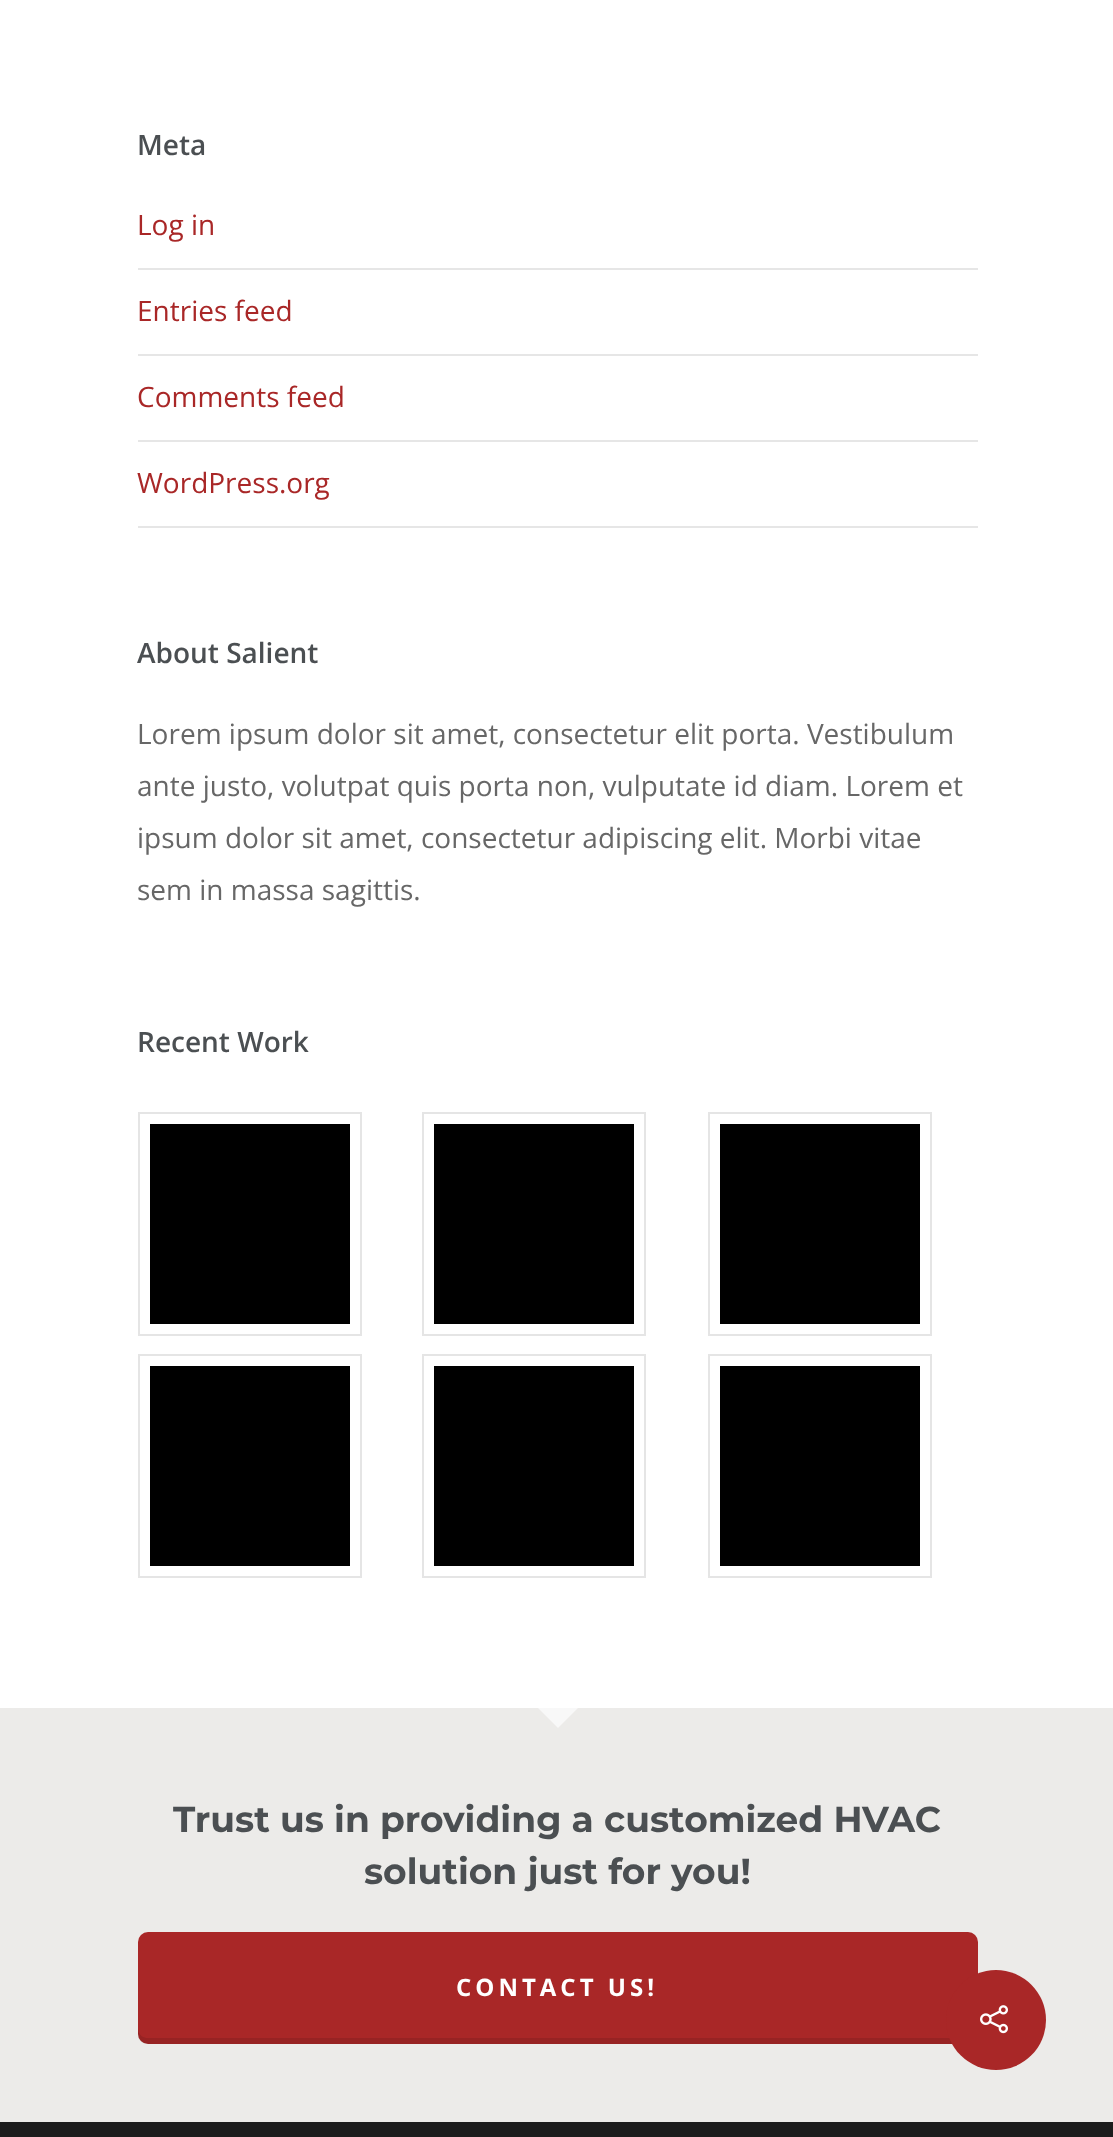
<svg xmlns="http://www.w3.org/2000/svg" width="1113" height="2137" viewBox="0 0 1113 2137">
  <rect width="100%" height="100%" fill="#fff"/>
  <path d="M138 268h840v2H138z" fill="#e6e6e6"/>
  <path d="M138 354h840v2H138z" fill="#e6e6e6"/>
  <path d="M138 440h840v2H138z" fill="#e6e6e6"/>
  <path d="M138 526h840v2H138z" fill="#e6e6e6"/>
  <path d="M139 1113h222v222H139z" fill="none" stroke="#e5e5e5" stroke-width="2"/>
  <path d="M150 1124h200v200H150z" fill="#000"/>
  <path d="M423 1113h222v222H423z" fill="none" stroke="#e5e5e5" stroke-width="2"/>
  <path d="M434 1124h200v200H434z" fill="#000"/>
  <path d="M709 1113h222v222H709z" fill="none" stroke="#e5e5e5" stroke-width="2"/>
  <path d="M720 1124h200v200H720z" fill="#000"/>
  <path d="M139 1355h222v222H139z" fill="none" stroke="#e5e5e5" stroke-width="2"/>
  <path d="M150 1366h200v200H150z" fill="#000"/>
  <path d="M423 1355h222v222H423z" fill="none" stroke="#e5e5e5" stroke-width="2"/>
  <path d="M434 1366h200v200H434z" fill="#000"/>
  <path d="M709 1355h222v222H709z" fill="none" stroke="#e5e5e5" stroke-width="2"/>
  <path d="M720 1366h200v200H720z" fill="#000"/>
  <path d="M0 1708h1113v414H0z" fill="#ecebe9"/>
  <path d="M538 1708H578L558 1728Z" fill="#f8f8f8"/>
  <rect x="138" y="1932" width="840" height="112" rx="10" fill="#a92727"/>
  <path d="M138 2028V2034C138 2040 142 2044 148 2044H968C974 2044 978 2040 978 2034V2028C978 2034 974 2038 968 2038H148C142 2038 138 2034 138 2028Z" fill="#0000001a"/>
  <path d="M0 2122h1113v15H0z" fill="#1c1c1c"/>
  <circle cx="996" cy="2020" r="50" fill="#a92727"/>
  <image x="980" y="2005" width="28" height="29" href="img/1.png"/>
  <text x="137" y="155" font-family="Open Sans" font-size="28" font-weight="600" fill="#4b4f52">Meta</text>
  <g font-family="Open Sans" font-size="28" fill="#a92727">
    <text x="137" y="235">Log in</text>
    <text x="137" y="321">Entries feed</text>
    <text x="137" y="407">Comments feed</text>
    <text x="137" y="493">WordPress.org</text>
  </g>
  <text x="137" y="663" font-family="Open Sans" font-size="28" font-weight="600" fill="#4b4f52">About Salient</text>
  <g font-family="Open Sans" font-size="28" fill="#676767">
    <text x="137" y="744">Lorem ipsum dolor sit amet, consectetur elit porta. Vestibulum</text>
    <text x="137" y="796">ante justo, volutpat quis porta non, vulputate id diam. Lorem et</text>
    <text x="137" y="848">ipsum dolor sit amet, consectetur adipiscing elit. Morbi vitae</text>
    <text x="137" y="900">sem in massa sagittis.</text>
  </g>
  <text x="137" y="1052" font-family="Open Sans" font-size="28" font-weight="600" fill="#4b4f52">Recent Work</text>
  <g font-family="Montserrat" font-size="36" font-weight="bold" fill="#4b4f52">
    <text x="173" y="1832">Trust us in providing a customized HVAC</text>
    <text x="364" y="1884">solution just for you!</text>
  </g>
  <text x="456" y="1996" font-family="Open Sans" font-size="24" font-weight="bold" letter-spacing="4" fill="#fff">CONTACT US!</text>
</svg>
